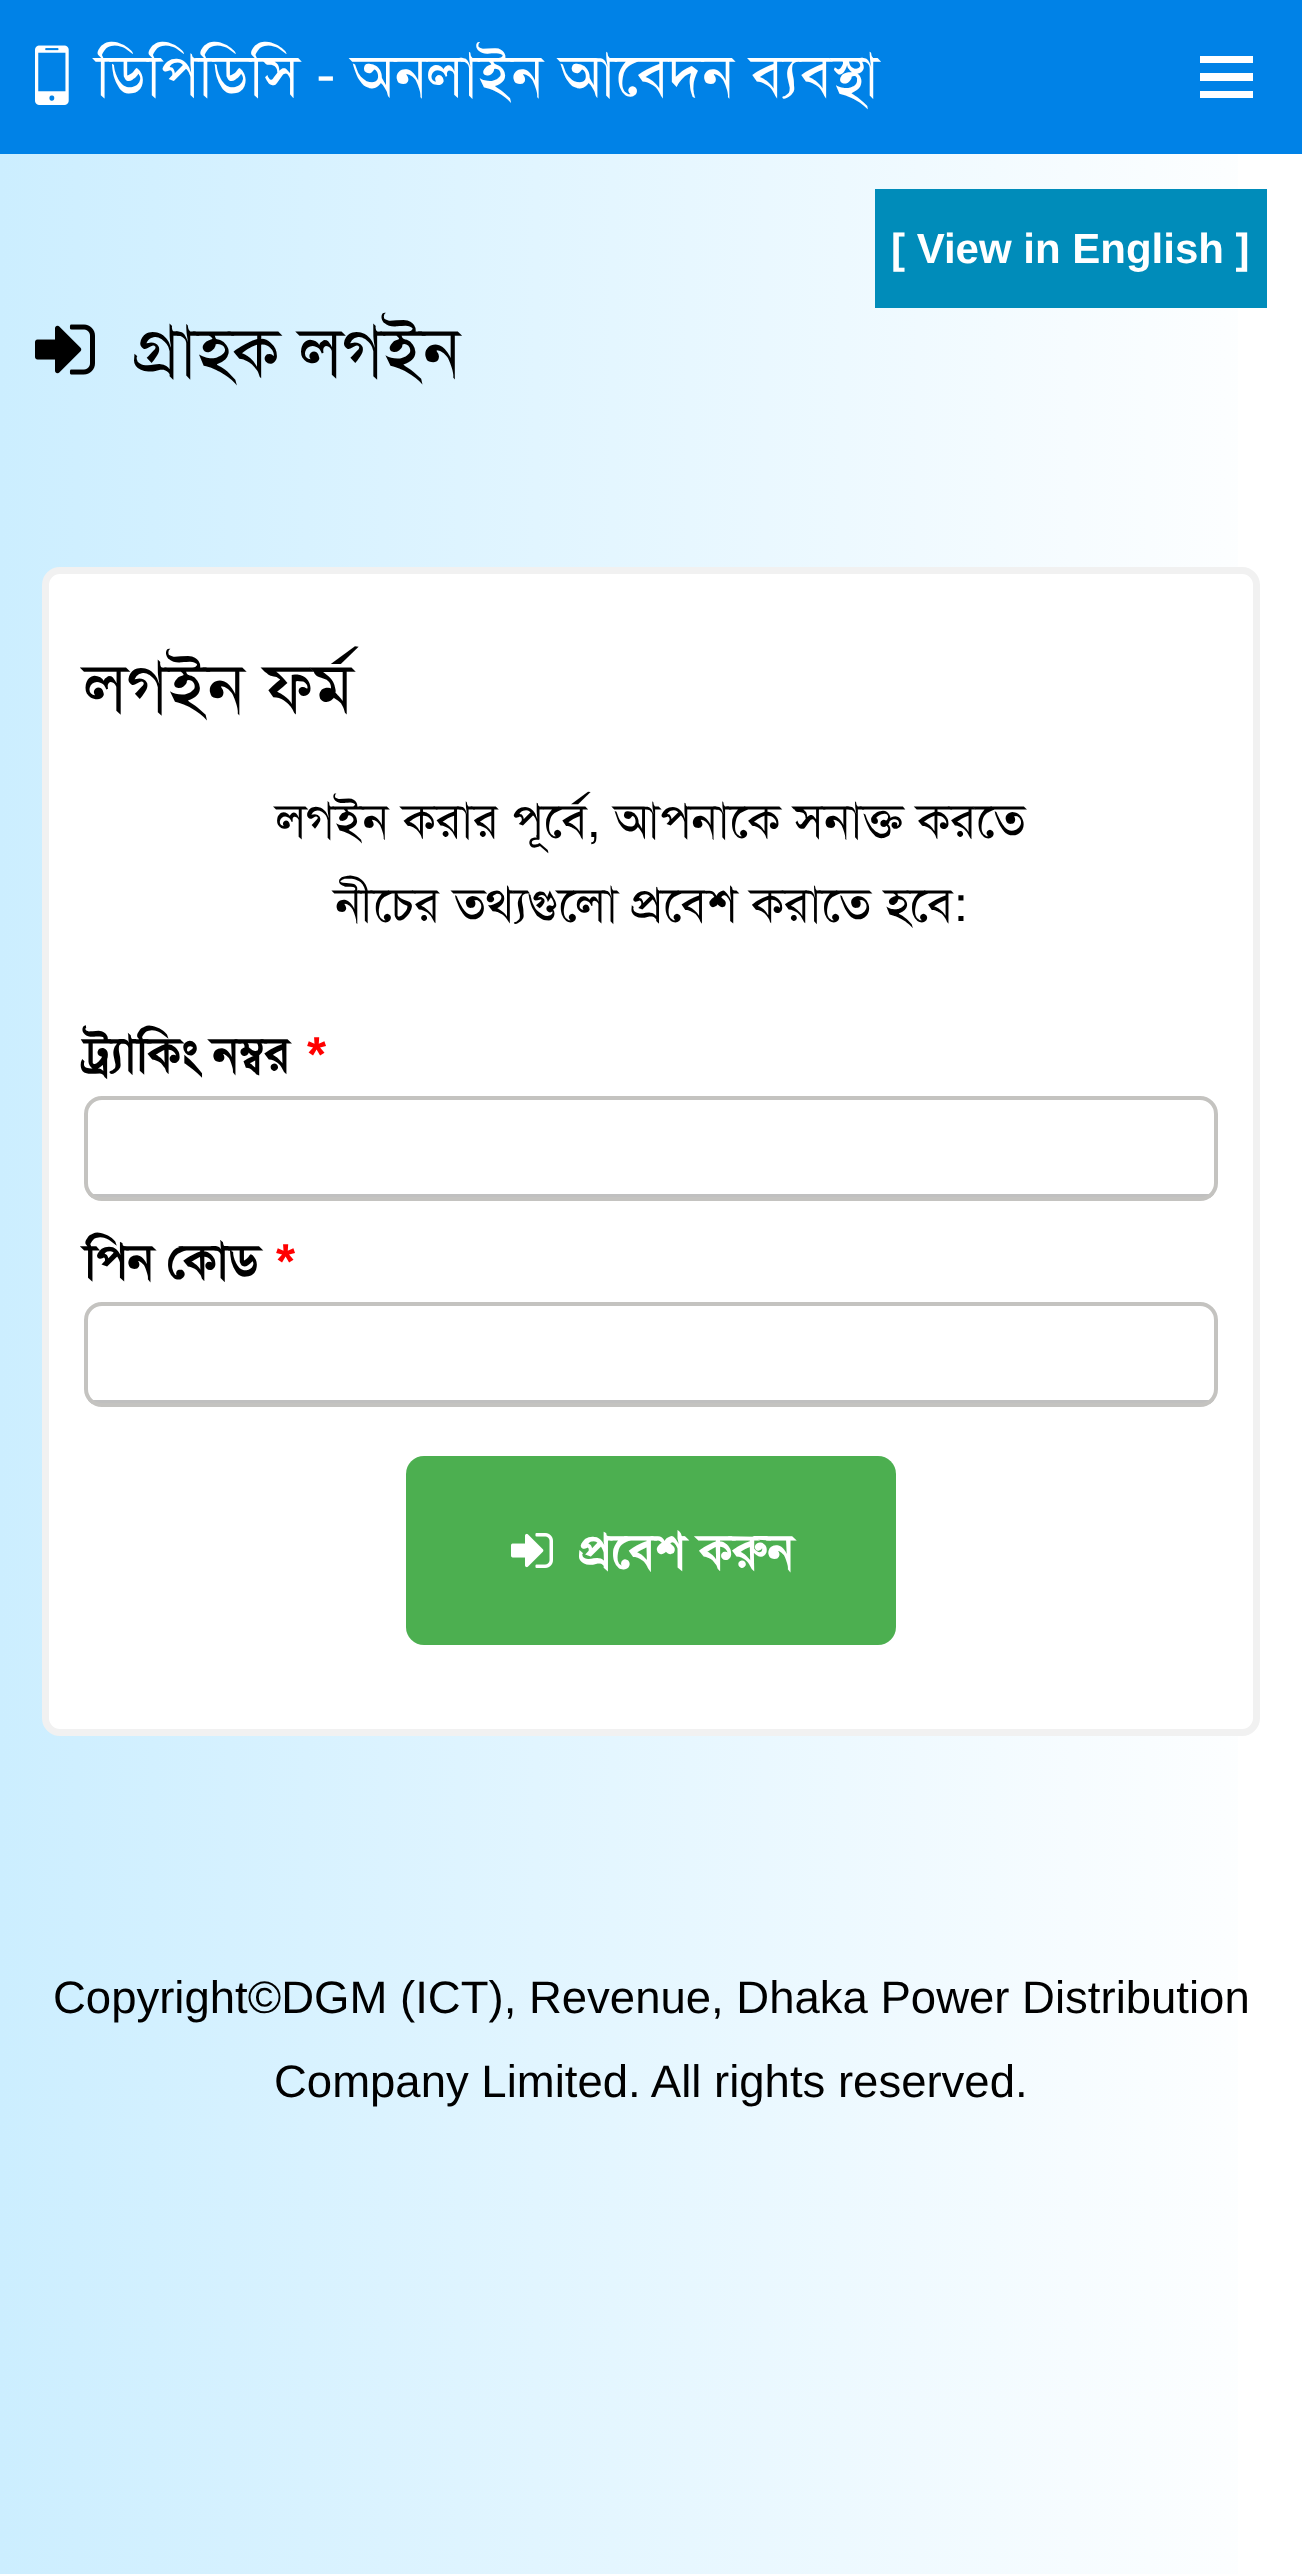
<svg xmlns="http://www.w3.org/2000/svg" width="1302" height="2574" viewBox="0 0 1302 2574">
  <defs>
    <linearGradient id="g1" gradientUnits="userSpaceOnUse" x1="0" y1="1103" x2="1302" y2="1103"><stop offset="0" stop-color="#cef"/><stop offset="1" stop-color="#fff"/></linearGradient>
    <clipPath id="clip1"><rect x="84" y="1096" width="1134" height="105" rx="18"/></clipPath>
    <clipPath id="clip2"><rect x="84" y="1302" width="1134" height="105" rx="18"/></clipPath>
  </defs>
  <rect width="100%" height="100%" fill="#fff"/>
  <path d="M0 154h1238v2420H0z" fill="url(#g1)"/>
  <path d="M0 0h1302v154H0z" fill="#0082e7"/>
  <image x="35" y="45" width="34" height="60" href="img/1.png"/>
  <path d="M1253 56V63H1200V56ZM1200 81H1253V73H1200ZM1200 98H1253V91H1200Z" fill="#fff"/>
  <path d="M875 189h392v119H875z" fill="#008cba"/>
  <image x="35" y="324" width="60" height="51" href="img/2.png"/>
  <rect x="45.5" y="570.5" width="1211" height="1162" rx="14.5" fill="#fff" stroke="#f1f1f1" stroke-width="7"/>
  <g clip-path="url(#clip1)">
    <path d="M88 1194h1127v4H88z" fill="#c0c0c0"/>
  </g>
  <rect x="86" y="1098" width="1130" height="101" rx="16" fill="none" stroke="#c4c3c0" stroke-width="4"/>
  <g clip-path="url(#clip2)">
    <path d="M88 1400h1127v4H88z" fill="#c0c0c0"/>
  </g>
  <rect x="86" y="1304" width="1130" height="101" rx="16" fill="none" stroke="#c4c3c0" stroke-width="4"/>
  <rect x="406" y="1456" width="490" height="189" rx="18" fill="#4caf50"/>
  <image x="511" y="1533" width="42" height="35" href="img/3.png"/>
  <text x="96" y="95" font-family="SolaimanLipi" font-size="59.5" fill="#fff">ডিপিডিসি - অনলাইন আবেদন ব্যবস্থা</text>
  <text x="891" y="263" font-family="Liberation Sans" font-size="42" font-weight="bold" fill="#fff">[ View in English ]</text>
  <g font-family="SolaimanLipi" font-size="70" fill="#000">
    <text x="134" y="375">গ্রাহক লগইন</text>
    <text x="84" y="711">লগইন ফর্ম</text>
  </g>
  <g font-family="SolaimanLipi" font-size="49" fill="#000">
    <text x="276" y="837">লগইন করার পূর্বে, আপনাকে সনাক্ত করতে</text>
    <text x="335" y="921">নীচের তথ্যগুলো প্রবেশ করাতে হবে:</text>
  </g>
  <text x="84" y="1071" font-family="SolaimanLipi" font-size="49" font-weight="bold" fill="#000">ট্র্যাকিং নম্বর</text>
  <text x="307" y="1071" font-family="Liberation Sans" font-size="49" font-weight="bold" fill="#f00">*</text>
  <text x="84" y="1278" font-family="SolaimanLipi" font-size="49" font-weight="bold" fill="#000">পিন কোড</text>
  <text x="276" y="1278" font-family="Liberation Sans" font-size="49" font-weight="bold" fill="#f00">*</text>
  <text x="579" y="1568" font-family="SolaimanLipi" font-size="49" font-weight="bold" fill="#fff">প্রবেশ করুন</text>
  <g font-family="Liberation Sans" font-size="45.5" fill="#000">
    <text x="53" y="2013">Copyright©DGM (ICT), Revenue, Dhaka Power Distribution</text>
    <text x="274" y="2097">Company Limited. All rights reserved.</text>
  </g>
</svg>
